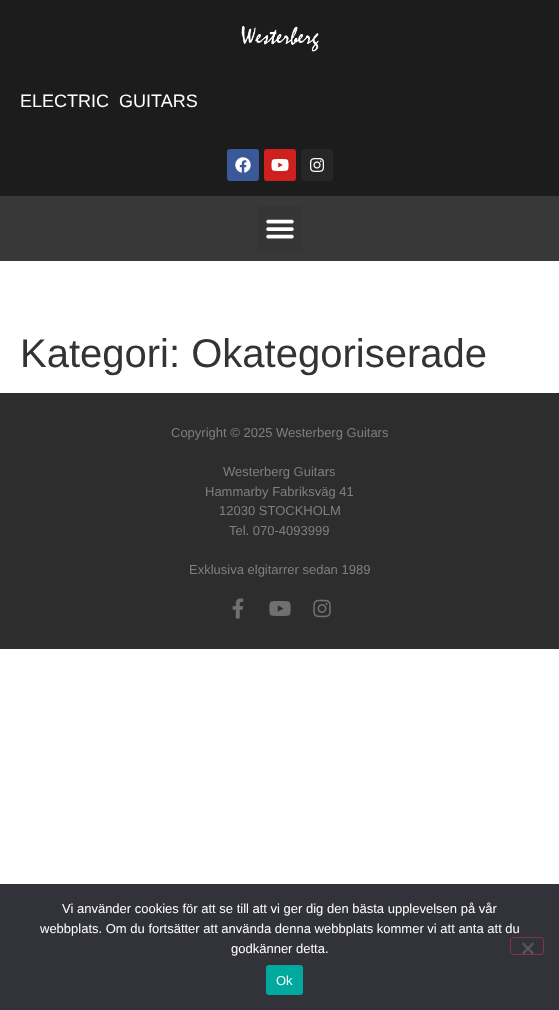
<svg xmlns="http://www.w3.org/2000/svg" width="559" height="1010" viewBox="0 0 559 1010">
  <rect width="100%" height="100%" fill="#fff"/>
  <path d="M0 0h559v196H0z" fill="#1c1c1c"/>
  <image x="241" y="25" width="78" height="27" href="img/1.png"/>
  <rect x="227" y="149" width="32" height="32" rx="3" fill="#3b5998"/>
  <image x="235" y="157" width="16" height="16" href="img/2.png"/>
  <rect x="264" y="149" width="32" height="32" rx="3" fill="#cd201f"/>
  <image x="271" y="159" width="18" height="12" href="img/3.png"/>
  <rect x="301" y="149" width="32" height="32" rx="3" fill="#262626"/>
  <image x="310" y="158" width="14" height="14" href="img/4.png"/>
  <path d="M0 196h559v65H0z" fill="#383838"/>
  <path d="M257 206h45v45H257z" fill="#353535"/>
  <image x="266" y="219" width="28" height="20" href="img/5.png"/>
  <path d="M0 393h559v256H0z" fill="#2d2d2d"/>
  <image x="232" y="598" width="12" height="21" href="img/6.png"/>
  <image x="269" y="601" width="22" height="15" href="img/7.png"/>
  <image x="313" y="599" width="18" height="19" href="img/8.png"/>
  <path d="M0 884h559v126H0z" fill="#32323a"/>
  <rect x="510.5" y="937.5" width="33" height="17" rx="2.5" fill="none" stroke="#7f3350"/>
  <path d="M532.5 942.5L534 944L523.5 954.5L522 953Z" fill="#59595d"/>
  <path d="M522 944L523.5 942.5L534 953L532.5 954.5Z" fill="#59595d"/>
  <rect x="266" y="965" width="37" height="30" rx="3" fill="#00a99d"/>
  <text x="20" y="107" font-family="Liberation Sans" font-size="18" fill="#fff" xml:space="preserve">ELECTRIC  GUITARS</text>
  <text x="20" y="367" font-family="Liberation Sans" font-size="40" fill="#333">Kategori: Okategoriserade</text>
  <g font-family="Liberation Sans" font-size="13" fill="#7f7f7f">
    <text x="171" y="437">Copyright © 2025 Westerberg Guitars</text>
    <text x="223" y="476">Westerberg Guitars</text>
    <text x="205" y="496">Hammarby Fabriksväg 41</text>
    <text x="219" y="515">12030 STOCKHOLM</text>
    <text x="229" y="535">Tel. 070-4093999</text>
    <text x="189" y="574">Exklusiva elgitarrer sedan 1989</text>
  </g>
  <g font-family="Liberation Sans" font-size="13" fill="#fff">
    <text x="62" y="913">Vi använder cookies för att se till att vi ger dig den bästa upplevelsen på vår</text>
    <text x="40" y="933">webbplats. Om du fortsätter att använda denna webbplats kommer vi att anta att du</text>
    <text x="231" y="953">godkänner detta.</text>
    <text x="276" y="985">Ok</text>
  </g>
</svg>
